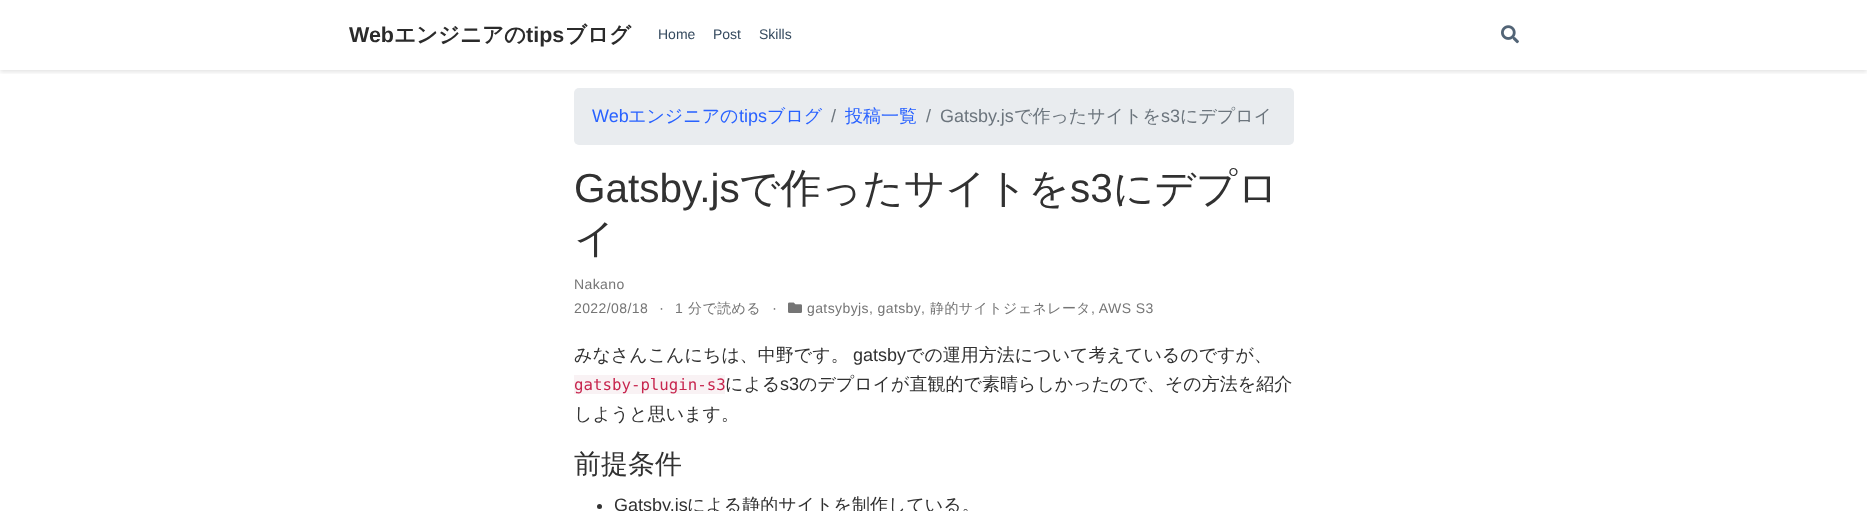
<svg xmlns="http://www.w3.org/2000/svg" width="1867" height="511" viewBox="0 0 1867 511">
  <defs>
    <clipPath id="clip1"><path d="M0 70h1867v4H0z"/></clipPath>
  </defs>
  <rect width="100%" height="100%" fill="#fff"/>
  <g clip-path="url(#clip1)">
    <path d="M0 2h1867v70H0z" fill="#0000001c" filter="blur(2px)"/>
  </g>
  <image x="1501" y="25" width="18" height="19" href="img/1.png"/>
  <rect x="574" y="88" width="720" height="57" rx="5" fill="#e9ecef"/>
  <image x="788" y="302" width="14" height="11" href="img/2.png"/>
  <path d="M574 375h151v19H574z" fill="#f9f2f4"/>
  <circle cx="599.5" cy="506.5" r="2.5" fill="#333"/>
  <text x="349" y="42" font-family="Liberation Sans" font-size="21.5" font-weight="bold" fill="#2b2b2b">Web</text>
  <text x="394" y="42" font-family="WenQuanYi Zen Hei" font-size="21.5" font-weight="bold" fill="#2b2b2b">エンジニアの</text>
  <text x="526" y="42" font-family="Liberation Sans" font-size="21.5" font-weight="bold" fill="#2b2b2b">tips</text>
  <text x="565" y="42" font-family="WenQuanYi Zen Hei" font-size="21.5" font-weight="bold" fill="#2b2b2b">ブログ</text>
  <g font-family="Liberation Sans" font-size="14" fill="#34495e">
    <text x="658" y="39">Home</text>
    <text x="713" y="39">Post</text>
    <text x="759" y="39">Skills</text>
  </g>
  <text x="592" y="122" font-family="Liberation Sans" font-size="18" fill="#2962ff">Web</text>
  <text x="628" y="122" font-family="WenQuanYi Zen Hei" font-size="18" font-weight="500" fill="#2962ff">エンジニアの</text>
  <text x="739" y="122" font-family="Liberation Sans" font-size="18" fill="#2962ff">tips</text>
  <text x="767" y="122" font-family="WenQuanYi Zen Hei" font-size="18" font-weight="500" fill="#2962ff">ブログ</text>
  <text x="831" y="122" font-family="Liberation Sans" font-size="18" fill="#6c757d">/</text>
  <text x="845" y="122" font-family="WenQuanYi Zen Hei" font-size="18" font-weight="500" fill="#2962ff">投稿一覧</text>
  <g font-family="Liberation Sans" font-size="18" fill="#6c757d">
    <text x="926" y="122">/</text>
    <text x="940" y="122">Gatsby.js</text>
  </g>
  <text x="1014" y="122" font-family="WenQuanYi Zen Hei" font-size="18" font-weight="500" fill="#6c757d">で作ったサイトを</text>
  <text x="1161" y="122" font-family="Liberation Sans" font-size="18" fill="#6c757d">s3</text>
  <text x="1180" y="122" font-family="WenQuanYi Zen Hei" font-size="18" font-weight="500" fill="#6c757d">にデプロイ</text>
  <text x="574" y="202" font-family="Liberation Sans" font-size="40.5" fill="#313131">Gatsby.js</text>
  <text x="739" y="202" font-family="WenQuanYi Zen Hei" font-size="40.5" font-weight="500" fill="#313131">で作ったサイトを</text>
  <text x="1070" y="202" font-family="Liberation Sans" font-size="40.5" fill="#313131">s3</text>
  <g font-family="WenQuanYi Zen Hei" font-size="40.5" font-weight="500" fill="#313131">
    <text x="1113" y="202">にデプロ</text>
    <text x="574" y="252">イ</text>
  </g>
  <g font-family="Liberation Sans" font-size="14" letter-spacing="0.4" fill="#757575">
    <text x="574" y="289">Nakano</text>
    <text x="574" y="313">2022/08/18</text>
  </g>
  <text x="659" y="313" font-family="Liberation Sans" font-size="15" letter-spacing="0.4" fill="#757575">·</text>
  <text x="675" y="313" font-family="Liberation Sans" font-size="14" letter-spacing="0.4" fill="#757575">1</text>
  <text x="688" y="313" font-family="WenQuanYi Zen Hei" font-size="14" font-weight="500" letter-spacing="0.4" fill="#757575">分で読める</text>
  <text x="772" y="313" font-family="Liberation Sans" font-size="15" letter-spacing="0.4" fill="#757575">·</text>
  <g font-family="Liberation Sans" font-size="14" letter-spacing="0.4" fill="#757575">
    <text x="807" y="313">gatsybyjs, gatsby</text>
    <text x="921" y="313">,</text>
  </g>
  <text x="930" y="313" font-family="WenQuanYi Zen Hei" font-size="14" font-weight="500" letter-spacing="0.4" fill="#757575">静的サイトジェネレータ</text>
  <text x="1091" y="313" font-family="Liberation Sans" font-size="14" letter-spacing="0.4" fill="#757575">, AWS S3</text>
  <text x="574" y="361" font-family="WenQuanYi Zen Hei" font-size="18" font-weight="500" fill="#313131">みなさんこんにちは、中野です。</text>
  <text x="853" y="361" font-family="Liberation Sans" font-size="18" fill="#313131">gatsby</text>
  <text x="906" y="361" font-family="WenQuanYi Zen Hei" font-size="18" font-weight="500" fill="#313131">での運用方法について考えているのですが、</text>
  <text x="574" y="390" font-family="DejaVu Sans Mono" font-size="15.75" fill="#c7254e">gatsby-plugin-s3</text>
  <text x="725" y="390" font-family="WenQuanYi Zen Hei" font-size="18" font-weight="500" fill="#313131">による</text>
  <text x="780" y="390" font-family="Liberation Sans" font-size="18" fill="#313131">s3</text>
  <g font-family="WenQuanYi Zen Hei" font-size="18" font-weight="500" fill="#313131">
    <text x="799" y="390">のデプロイが直観的で素晴らしかったので、その方法を紹介</text>
    <text x="574" y="420">しようと思います。</text>
  </g>
  <text x="574" y="473" font-family="WenQuanYi Zen Hei" font-size="27" font-weight="500" fill="#313131">前提条件</text>
  <text x="614" y="511" font-family="Liberation Sans" font-size="18" fill="#313131">Gatsby.js</text>
  <text x="687" y="511" font-family="WenQuanYi Zen Hei" font-size="18" font-weight="500" fill="#313131">による静的サイトを制作している。</text>
</svg>
